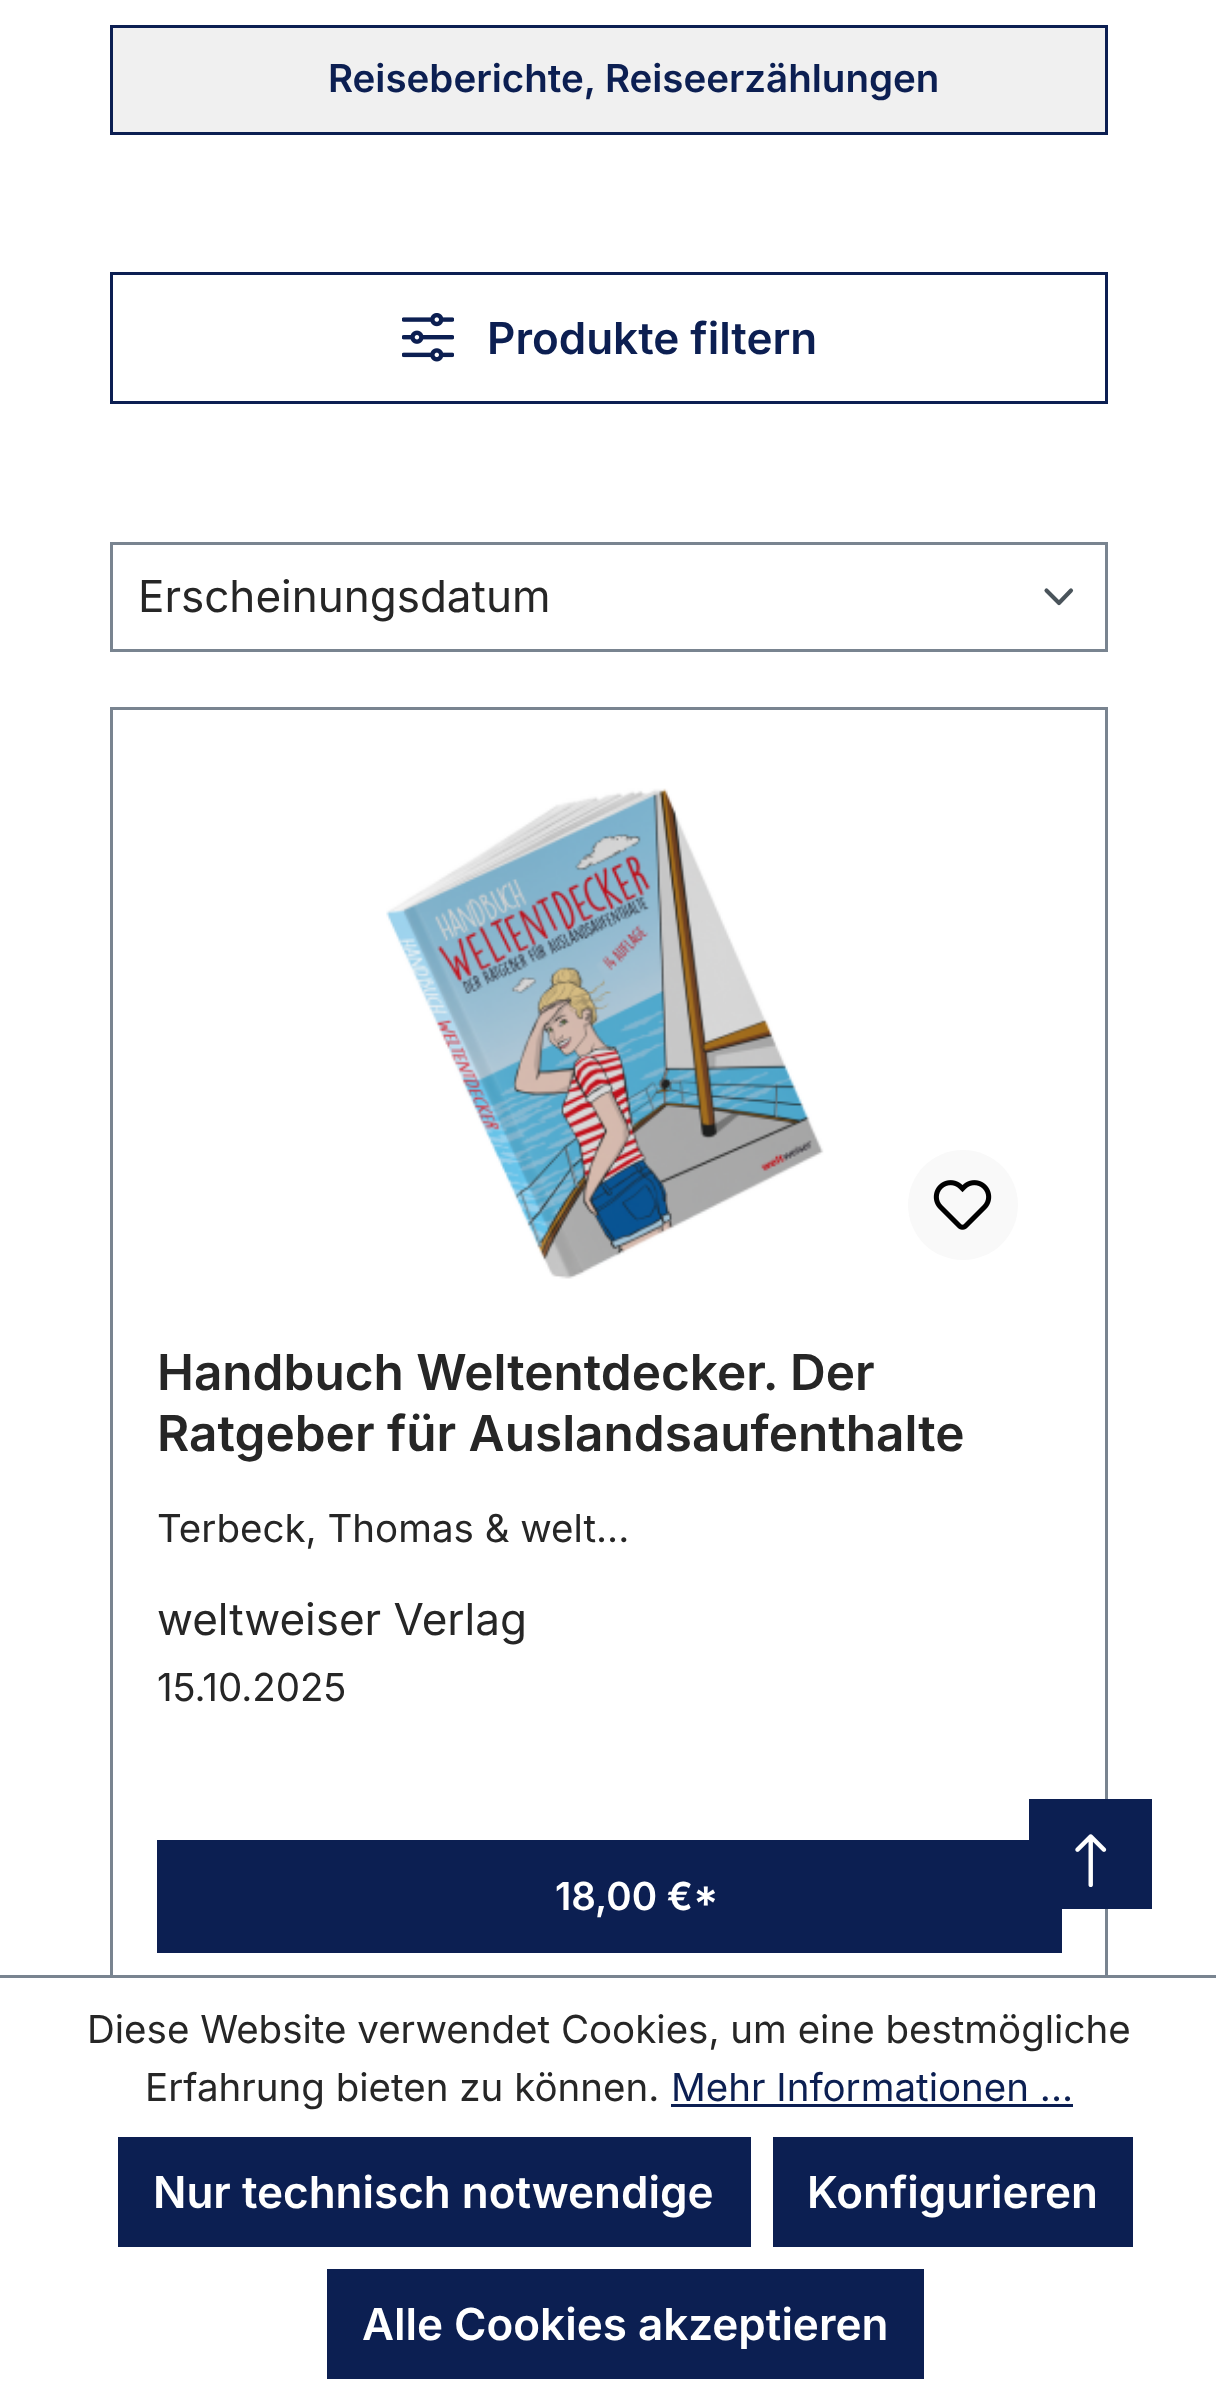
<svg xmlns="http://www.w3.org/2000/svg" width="1216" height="2399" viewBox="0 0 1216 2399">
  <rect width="100%" height="100%" fill="#fff"/>
  <path d="M111.5 26.5h995v107H111.5z" fill="#f0f0f0" stroke="#0c1f52" stroke-width="3"/>
  <path d="M111.5 273.5h995v129H111.5z" fill="none" stroke="#0c1f52" stroke-width="3"/>
  <image x="402" y="313" width="52" height="49" href="img/1.png"/>
  <path d="M1046.5 590.5L1059 603L1071 590.5" fill="none" stroke="#4a545b" stroke-width="4.1" stroke-linecap="round" stroke-linejoin="round"/>
  <path d="M111.5 543.5h995v107H111.5z" fill="none" stroke="#798490" stroke-width="3"/>
  <path d="M111.5 708.5h995v1289H111.5z" fill="none" stroke="#798490" stroke-width="3"/>
  <image x="386" y="788" width="438" height="491" href="img/2.png"/>
  <circle cx="963" cy="1205" r="55" fill="#f9f9f9"/>
  <image x="933" y="1180" width="59" height="50" href="img/3.png"/>
  <path d="M157 1840h905v113H157z" fill="#0c1f52"/>
  <path d="M1029 1799h123v110H1029z" fill="#0c1f52"/>
  <image x="1075" y="1834" width="32" height="53" href="img/4.png"/>
  <path d="M110 1978h998v21H110z" fill="#fff"/>
  <path d="M0 1975h1216v3H0z" fill="#798490"/>
  <path d="M671 2104h402v3H671z" fill="#0c1f52"/>
  <path d="M118 2137h633v110H118z" fill="#0c1f52"/>
  <path d="M773 2137h360v110H773z" fill="#0c1f52"/>
  <path d="M327 2269h597v110H327z" fill="#0c1f52"/>
  <text x="328" y="92" font-family="Inter" font-size="38.5" font-weight="600" fill="#0c1f52">Reiseberichte, Reiseerzählungen</text>
  <text x="487" y="354" font-family="Inter" font-size="44" font-weight="600" fill="#0c1f52">Produkte filtern</text>
  <text x="138" y="612" font-family="Inter" font-size="44" fill="#262626">Erscheinungsdatum</text>
  <g font-family="Inter" font-size="49.5" font-weight="600" fill="#262626">
    <text x="157" y="1390">Handbuch Weltentdecker. Der</text>
    <text x="157" y="1451">Ratgeber für Auslandsaufenthalte</text>
  </g>
  <text x="157" y="1542" font-family="Inter" font-size="38.5" fill="#262626">Terbeck, Thomas &amp; welt...</text>
  <text x="157" y="1635" font-family="Inter" font-size="44" fill="#262626">weltweiser Verlag</text>
  <text x="157" y="1701" font-family="Inter" font-size="38.5" fill="#262626">15.10.2025</text>
  <text x="555" y="1910" font-family="Inter" font-size="38.5" font-weight="600" fill="#fff">18,00 €*</text>
  <g font-family="Inter" font-size="38.5" fill="#262626">
    <text x="87" y="2043">Diese Website verwendet Cookies, um eine bestmögliche</text>
    <text x="145" y="2101">Erfahrung bieten zu können.</text>
  </g>
  <text x="671" y="2101" font-family="Inter" font-size="38.5" fill="#0c1f52">Mehr Informationen ...</text>
  <g font-family="Inter" font-size="44" font-weight="600" fill="#fff">
    <text x="153" y="2208">Nur technisch notwendige</text>
    <text x="807" y="2208">Konfigurieren</text>
    <text x="362" y="2340">Alle Cookies akzeptieren</text>
  </g>
</svg>
